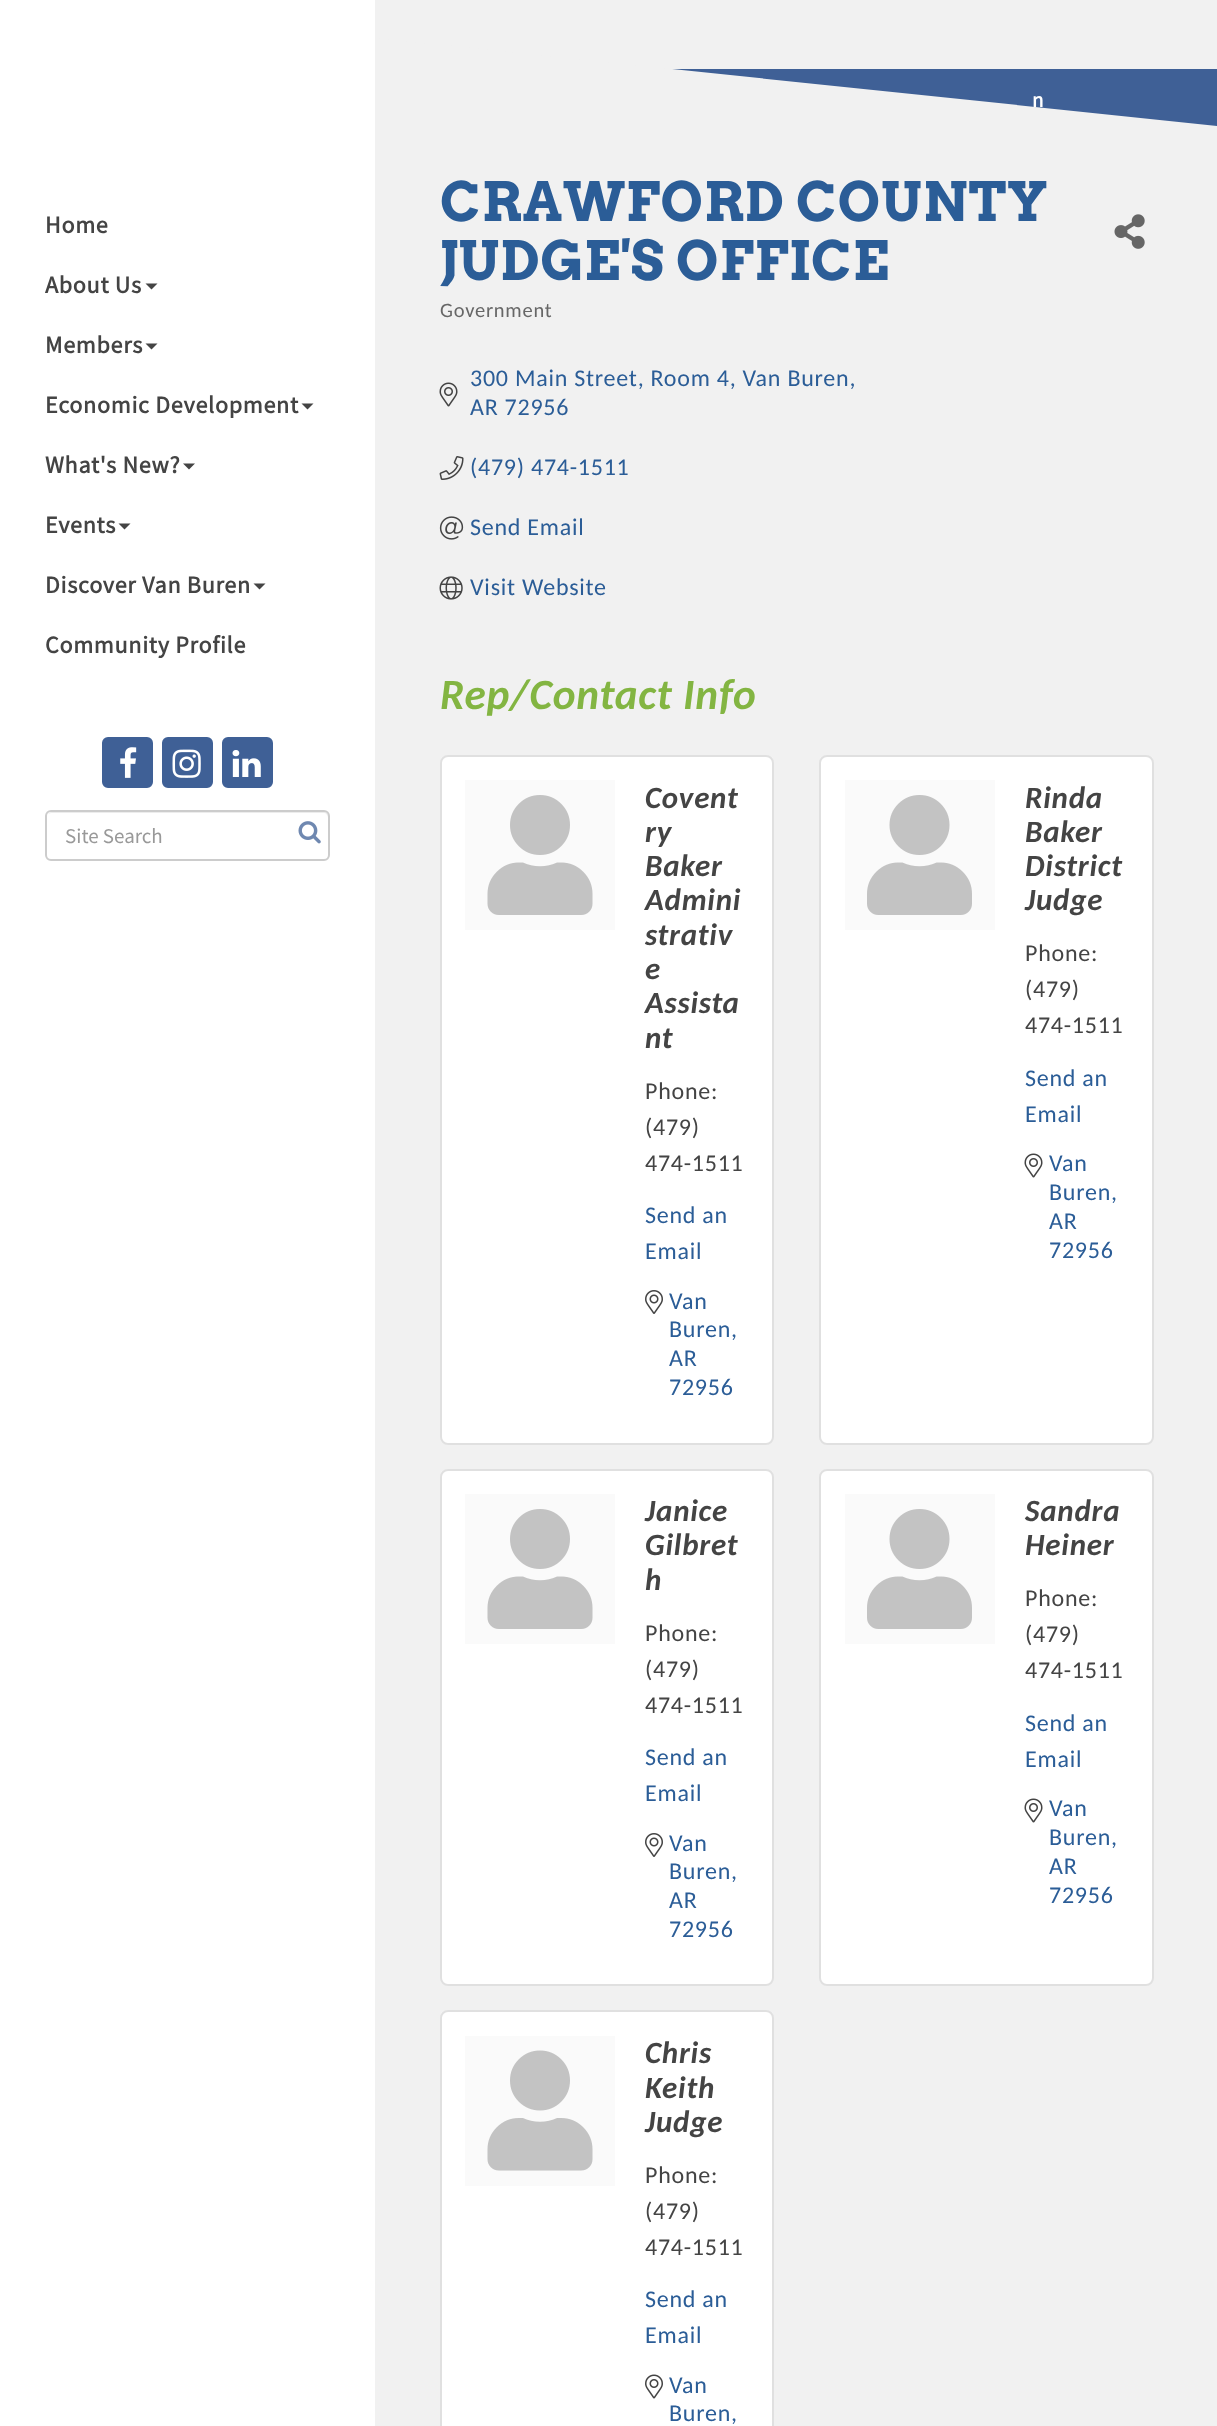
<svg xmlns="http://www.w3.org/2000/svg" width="1217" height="2426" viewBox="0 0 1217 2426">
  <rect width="100%" height="100%" fill="#f1f1f1"/>
  <path d="M0 0h375v2426H0z" fill="#fff"/>
  <path d="M145.5 283.5H157.5L151.5 289.5Z" fill="#444"/>
  <path d="M145.5 343.5H157.5L151.5 349.5Z" fill="#444"/>
  <path d="M301.5 403.5H313.5L307.5 409.5Z" fill="#444"/>
  <path d="M183 463.5H195L189 469.5Z" fill="#444"/>
  <path d="M118.5 523.5H130.5L124.5 529.5Z" fill="#444"/>
  <path d="M253.5 583.5H265.5L259.5 589.5Z" fill="#444"/>
  <rect x="103" y="738" width="49" height="49" rx="5" fill="#3f6096" stroke="#3f6096" stroke-width="2"/>
  <image x="120" y="747" width="17" height="31" href="img/1.png"/>
  <rect x="163" y="738" width="49" height="49" rx="5" fill="#3f6096" stroke="#3f6096" stroke-width="2"/>
  <image x="172" y="749" width="29" height="29" href="img/2.png"/>
  <rect x="223" y="738" width="49" height="49" rx="5" fill="#3f6096" stroke="#3f6096" stroke-width="2"/>
  <image x="232" y="750" width="29" height="27" href="img/3.png"/>
  <path d="M51 813H324C326 813 328 815 328 818V856L327 859C328 858 329 856 329 855V817C329 814 327 812 324 812H52C50 812 49 813 48 814Z" fill="#ececec"/>
  <rect x="46" y="811" width="283" height="49" rx="5" fill="none" stroke="#ccc" stroke-width="2"/>
  <image x="298" y="821" width="23" height="23" href="img/4.png"/>
  <path d="M672 69h545v57H672z" fill="#3f6096"/>
  <g font-family="Source Sans Pro" font-size="24" font-weight="bold" letter-spacing="0.75" fill="#444">
    <text x="45" y="233">Home</text>
    <text x="45" y="293">About Us</text>
    <text x="45" y="353">Members</text>
    <text x="45" y="413">Economic Development</text>
    <text x="45" y="473">What's New?</text>
    <text x="45" y="533">Events</text>
    <text x="45" y="593">Discover Van Buren</text>
    <text x="45" y="653">Community Profile</text>
  </g>
  <text x="65" y="843" font-family="Source Sans Pro" font-size="21" fill="#999">Site Search</text>
  <text x="1032" y="107" font-family="Source Sans Pro" font-size="21" font-weight="bold" letter-spacing="0.75" fill="#fff">n</text>
  <path d="M375 38L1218 126V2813L375 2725Z" fill="#f1f1f1"/>
  <g font-family="Arvo" font-size="54" font-weight="bold" letter-spacing="0.75" fill="#2b5d97">
    <text x="440" y="221">CRAWFORD COUNTY</text>
    <text x="440" y="280">JUDGE'S OFFICE</text>
  </g>
  <image x="1114" y="214" width="31" height="35" href="img/5.png"/>
  <text x="440" y="317" font-family="Carlito" font-size="20.5" letter-spacing="0.75" fill="#676767">Government</text>
  <text x="470" y="386" font-family="Carlito" font-size="24" letter-spacing="0.75" fill="#2b5d97">300 Main Street, Room 4, Van Buren,</text>
  <image x="439" y="382" width="19" height="25" href="img/6.png"/>
  <text x="470" y="415" font-family="Carlito" font-size="24" letter-spacing="0.75" fill="#2b5d97">AR 72956</text>
  <image x="439" y="456" width="25" height="24" href="img/7.png"/>
  <text x="470" y="475" font-family="Carlito" font-size="24" letter-spacing="0.75" fill="#2b5d97">(479) 474-1511</text>
  <image x="439" y="516" width="25" height="24" href="img/8.png"/>
  <text x="470" y="535" font-family="Carlito" font-size="24" letter-spacing="0.75" fill="#2b5d97">Send Email</text>
  <image x="439" y="576" width="24" height="24" href="img/9.png"/>
  <text x="470" y="595" font-family="Carlito" font-size="24" letter-spacing="0.75" fill="#2b5d97">Visit Website</text>
  <text x="440" y="709" font-family="Carlito" font-size="43.25" font-weight="bold" font-style="italic" letter-spacing="0.75" fill="#83b542">Rep/Contact Info</text>
  <rect x="440" y="755" width="334" height="690" rx="8" fill="#fff"/>
  <rect x="441" y="756" width="332" height="688" rx="7" fill="none" stroke="#0000001f" stroke-width="2"/>
  <path d="M465 780h150v150H465z" fill="#fafafa"/>
  <image x="487" y="795" width="106" height="120" href="img/10.png"/>
  <g font-family="Carlito" font-size="31" font-weight="bold" font-style="italic" letter-spacing="0.75" fill="#444">
    <text x="645" y="808">Covent</text>
    <text x="645" y="842">ry</text>
    <text x="645" y="876">Baker</text>
    <text x="645" y="910">Admini</text>
    <text x="645" y="945">strativ</text>
    <text x="645" y="979">e</text>
    <text x="645" y="1013">Assista</text>
    <text x="645" y="1048">nt</text>
  </g>
  <g font-family="Carlito" font-size="24" letter-spacing="0.75" fill="#444">
    <text x="645" y="1099">Phone:</text>
    <text x="645" y="1135">(479)</text>
    <text x="645" y="1171">474-1511</text>
  </g>
  <g font-family="Carlito" font-size="24" letter-spacing="0.75" fill="#2b5d97">
    <text x="645" y="1223">Send an</text>
    <text x="645" y="1259">Email</text>
  </g>
  <image x="645" y="1290" width="18" height="24" href="img/11.png"/>
  <g font-family="Carlito" font-size="24" letter-spacing="0.75" fill="#2b5d97">
    <text x="669" y="1309">Van</text>
    <text x="669" y="1337">Buren,</text>
    <text x="669" y="1366">AR</text>
    <text x="669" y="1395">72956</text>
  </g>
  <rect x="819" y="755" width="335" height="690" rx="8" fill="#fff"/>
  <rect x="820" y="756" width="333" height="688" rx="7" fill="none" stroke="#0000001f" stroke-width="2"/>
  <path d="M845 780h150v150H845z" fill="#fafafa"/>
  <image x="867" y="795" width="105" height="120" href="img/12.png"/>
  <g font-family="Carlito" font-size="31" font-weight="bold" font-style="italic" letter-spacing="0.75" fill="#444">
    <text x="1025" y="808">Rinda</text>
    <text x="1025" y="842">Baker</text>
    <text x="1025" y="876">District</text>
    <text x="1025" y="910">Judge</text>
  </g>
  <g font-family="Carlito" font-size="24" letter-spacing="0.75" fill="#444">
    <text x="1025" y="961">Phone:</text>
    <text x="1025" y="997">(479)</text>
    <text x="1025" y="1033">474-1511</text>
  </g>
  <g font-family="Carlito" font-size="24" letter-spacing="0.75" fill="#2b5d97">
    <text x="1025" y="1086">Send an</text>
    <text x="1025" y="1122">Email</text>
  </g>
  <image x="1024" y="1153" width="19" height="25" href="img/13.png"/>
  <g font-family="Carlito" font-size="24" letter-spacing="0.75" fill="#2b5d97">
    <text x="1049" y="1171">Van</text>
    <text x="1049" y="1200">Buren,</text>
    <text x="1049" y="1229">AR</text>
    <text x="1049" y="1258">72956</text>
  </g>
  <rect x="440" y="1469" width="334" height="517" rx="8" fill="#fff"/>
  <rect x="441" y="1470" width="332" height="515" rx="7" fill="none" stroke="#0000001f" stroke-width="2"/>
  <path d="M465 1494h150v150H465z" fill="#fafafa"/>
  <image x="487" y="1509" width="106" height="120" href="img/10.png"/>
  <g font-family="Carlito" font-size="31" font-weight="bold" font-style="italic" letter-spacing="0.75" fill="#444">
    <text x="645" y="1521">Janice</text>
    <text x="645" y="1555">Gilbret</text>
    <text x="645" y="1590">h</text>
  </g>
  <g font-family="Carlito" font-size="24" letter-spacing="0.75" fill="#444">
    <text x="645" y="1641">Phone:</text>
    <text x="645" y="1677">(479)</text>
    <text x="645" y="1713">474-1511</text>
  </g>
  <g font-family="Carlito" font-size="24" letter-spacing="0.75" fill="#2b5d97">
    <text x="645" y="1765">Send an</text>
    <text x="645" y="1801">Email</text>
  </g>
  <image x="645" y="1833" width="18" height="24" href="img/11.png"/>
  <g font-family="Carlito" font-size="24" letter-spacing="0.75" fill="#2b5d97">
    <text x="669" y="1851">Van</text>
    <text x="669" y="1879">Buren,</text>
    <text x="669" y="1908">AR</text>
    <text x="669" y="1937">72956</text>
  </g>
  <rect x="819" y="1469" width="335" height="517" rx="8" fill="#fff"/>
  <rect x="820" y="1470" width="333" height="515" rx="7" fill="none" stroke="#0000001f" stroke-width="2"/>
  <path d="M845 1494h150v150H845z" fill="#fafafa"/>
  <image x="867" y="1509" width="105" height="120" href="img/12.png"/>
  <g font-family="Carlito" font-size="31" font-weight="bold" font-style="italic" letter-spacing="0.75" fill="#444">
    <text x="1025" y="1521">Sandra</text>
    <text x="1025" y="1555">Heiner</text>
  </g>
  <g font-family="Carlito" font-size="24" letter-spacing="0.75" fill="#444">
    <text x="1025" y="1606">Phone:</text>
    <text x="1025" y="1642">(479)</text>
    <text x="1025" y="1678">474-1511</text>
  </g>
  <g font-family="Carlito" font-size="24" letter-spacing="0.75" fill="#2b5d97">
    <text x="1025" y="1731">Send an</text>
    <text x="1025" y="1767">Email</text>
  </g>
  <image x="1024" y="1798" width="19" height="25" href="img/13.png"/>
  <g font-family="Carlito" font-size="24" letter-spacing="0.75" fill="#2b5d97">
    <text x="1049" y="1816">Van</text>
    <text x="1049" y="1845">Buren,</text>
    <text x="1049" y="1874">AR</text>
    <text x="1049" y="1903">72956</text>
  </g>
  <rect x="440" y="2010" width="334" height="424" rx="8" fill="#fff"/>
  <rect x="441" y="2011" width="332" height="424" rx="7" fill="none" stroke="#0000001f" stroke-width="2"/>
  <path d="M465 2036h150v150H465z" fill="#fafafa"/>
  <image x="487" y="2050" width="106" height="121" href="img/14.png"/>
  <g font-family="Carlito" font-size="31" font-weight="bold" font-style="italic" letter-spacing="0.75" fill="#444">
    <text x="645" y="2063">Chris</text>
    <text x="645" y="2098">Keith</text>
    <text x="645" y="2132">Judge</text>
  </g>
  <g font-family="Carlito" font-size="24" letter-spacing="0.75" fill="#444">
    <text x="645" y="2183">Phone:</text>
    <text x="645" y="2219">(479)</text>
    <text x="645" y="2255">474-1511</text>
  </g>
  <g font-family="Carlito" font-size="24" letter-spacing="0.75" fill="#2b5d97">
    <text x="645" y="2307">Send an</text>
    <text x="645" y="2343">Email</text>
  </g>
  <image x="645" y="2374" width="18" height="25" href="img/15.png"/>
  <g font-family="Carlito" font-size="24" letter-spacing="0.75" fill="#2b5d97">
    <text x="669" y="2393">Van</text>
    <text x="669" y="2421">Buren,</text>
  </g>
</svg>
